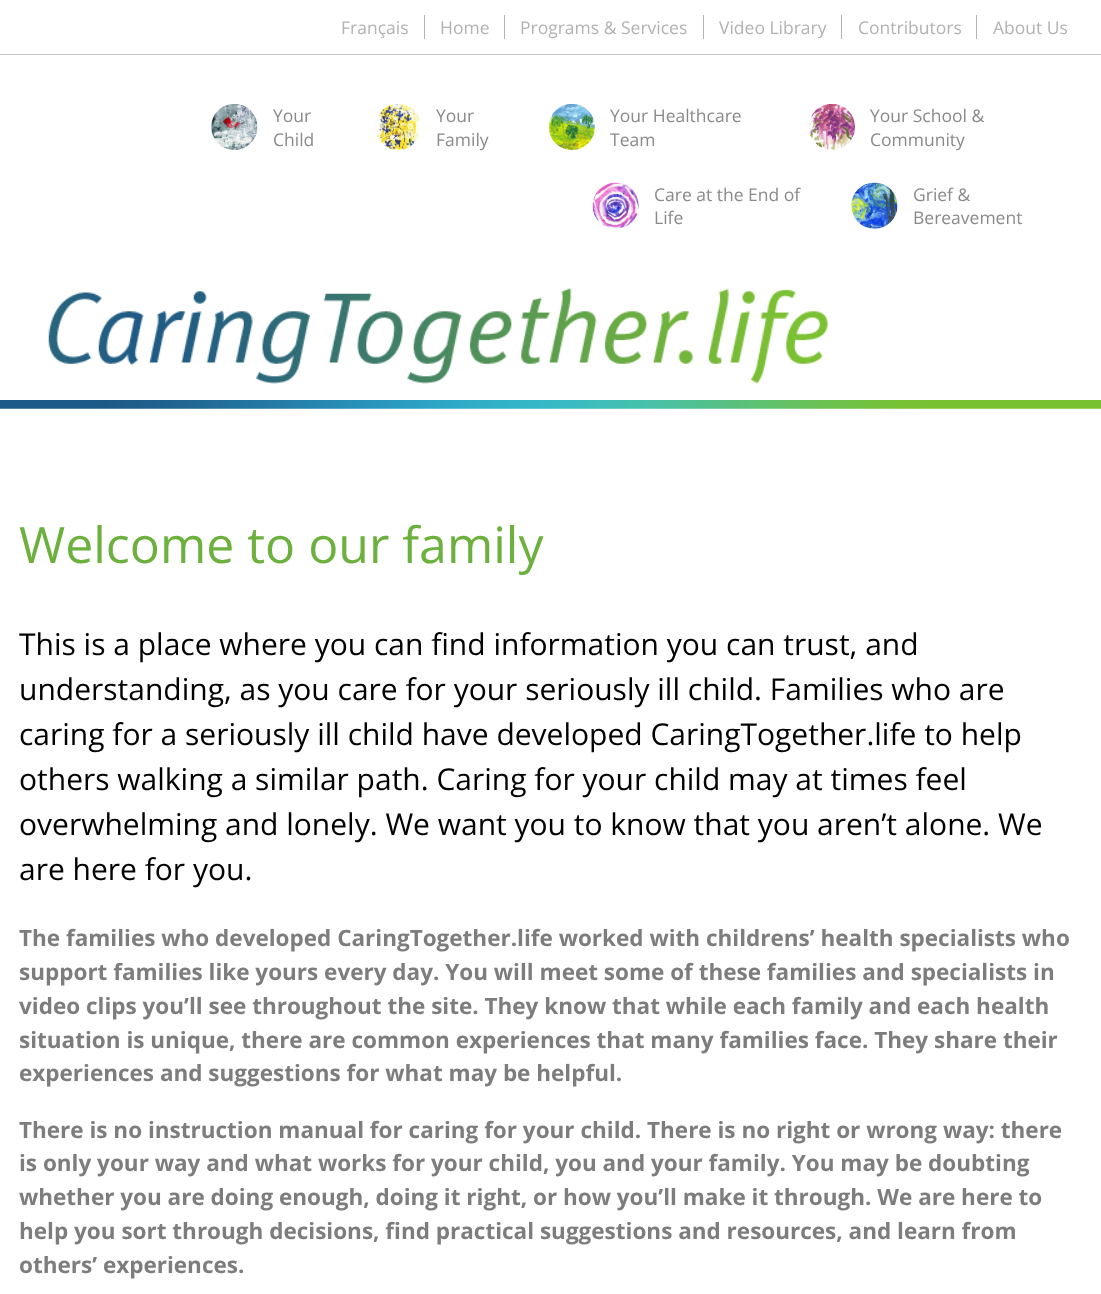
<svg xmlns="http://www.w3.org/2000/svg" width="1101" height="1294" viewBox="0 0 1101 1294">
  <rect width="100%" height="100%" fill="#fff"/>
  <path d="M0 54h1101v1H0z" fill="#c4c4c4"/>
  <path d="M424 15h1v24H424z" fill="#b2b2b2"/>
  <path d="M504 15h1v24H504z" fill="#b2b2b2"/>
  <path d="M703 15h1v24H703z" fill="#b2b2b2"/>
  <path d="M841 15h1v24H841z" fill="#b2b2b2"/>
  <path d="M976 15h1v24H976z" fill="#b2b2b2"/>
  <image x="0" y="400" width="1101" height="9" href="img/1.png"/>
  <image x="211" y="103" width="47" height="47" href="img/2.png"/>
  <image x="375" y="104" width="45" height="46" href="img/3.png"/>
  <image x="548" y="103" width="47" height="47" href="img/4.png"/>
  <image x="809" y="103" width="46" height="47" href="img/5.png"/>
  <image x="592" y="182" width="47" height="47" href="img/6.png"/>
  <image x="851" y="182" width="47" height="47" href="img/7.png"/>
  <image x="48" y="287" width="780" height="97" href="img/8.png"/>
  <g font-family="Open Sans" font-size="17.5" fill="#b2b2b2">
    <text x="341" y="34">Français</text>
    <text x="440" y="34">Home</text>
    <text x="520" y="34">Programs &amp; Services</text>
    <text x="719" y="34">Video Library</text>
    <text x="858" y="34">Contributors</text>
    <text x="993" y="34">About Us</text>
  </g>
  <g font-family="Open Sans" font-size="17.5" fill="#8a8a8a">
    <text x="273" y="122">Your</text>
    <text x="273" y="146">Child</text>
    <text x="436" y="122">Your</text>
    <text x="436" y="146">Family</text>
    <text x="610" y="122">Your Healthcare</text>
    <text x="610" y="146">Team</text>
    <text x="870" y="122">Your School &amp;</text>
    <text x="870" y="146">Community</text>
    <text x="654" y="201">Care at the End of</text>
    <text x="654" y="224">Life</text>
    <text x="913" y="201">Grief &amp;</text>
    <text x="913" y="224">Bereavement</text>
  </g>
  <text x="19" y="563" font-family="Open Sans" font-size="50" fill="#6cb03d">Welcome to our family</text>
  <g font-family="Open Sans" font-size="30" fill="#000">
    <text x="19" y="655">This is a place where you can find information you can trust, and</text>
    <text x="19" y="700">understanding, as you care for your seriously ill child. Families who are</text>
    <text x="19" y="745">caring for a seriously ill child have developed CaringTogether.life to help</text>
    <text x="19" y="790">others walking a similar path. Caring for your child may at times feel</text>
    <text x="19" y="835">overwhelming and lonely. We want you to know that you aren’t alone. We</text>
    <text x="19" y="880">are here for you.</text>
  </g>
  <g font-family="Open Sans" font-size="22.5" font-weight="bold" fill="#7d7d7d">
    <text x="19" y="946">The families who developed CaringTogether.life worked with childrens’ health specialists who</text>
    <text x="19" y="980">support families like yours every day. You will meet some of these families and specialists in</text>
    <text x="19" y="1014">video clips you’ll see throughout the site. They know that while each family and each health</text>
    <text x="19" y="1048">situation is unique, there are common experiences that many families face. They share their</text>
    <text x="19" y="1081">experiences and suggestions for what may be helpful.</text>
    <text x="19" y="1138">There is no instruction manual for caring for your child. There is no right or wrong way: there</text>
    <text x="19" y="1171">is only your way and what works for your child, you and your family. You may be doubting</text>
    <text x="19" y="1205">whether you are doing enough, doing it right, or how you’ll make it through. We are here to</text>
    <text x="19" y="1239">help you sort through decisions, find practical suggestions and resources, and learn from</text>
    <text x="19" y="1273">others’ experiences.</text>
  </g>
</svg>
